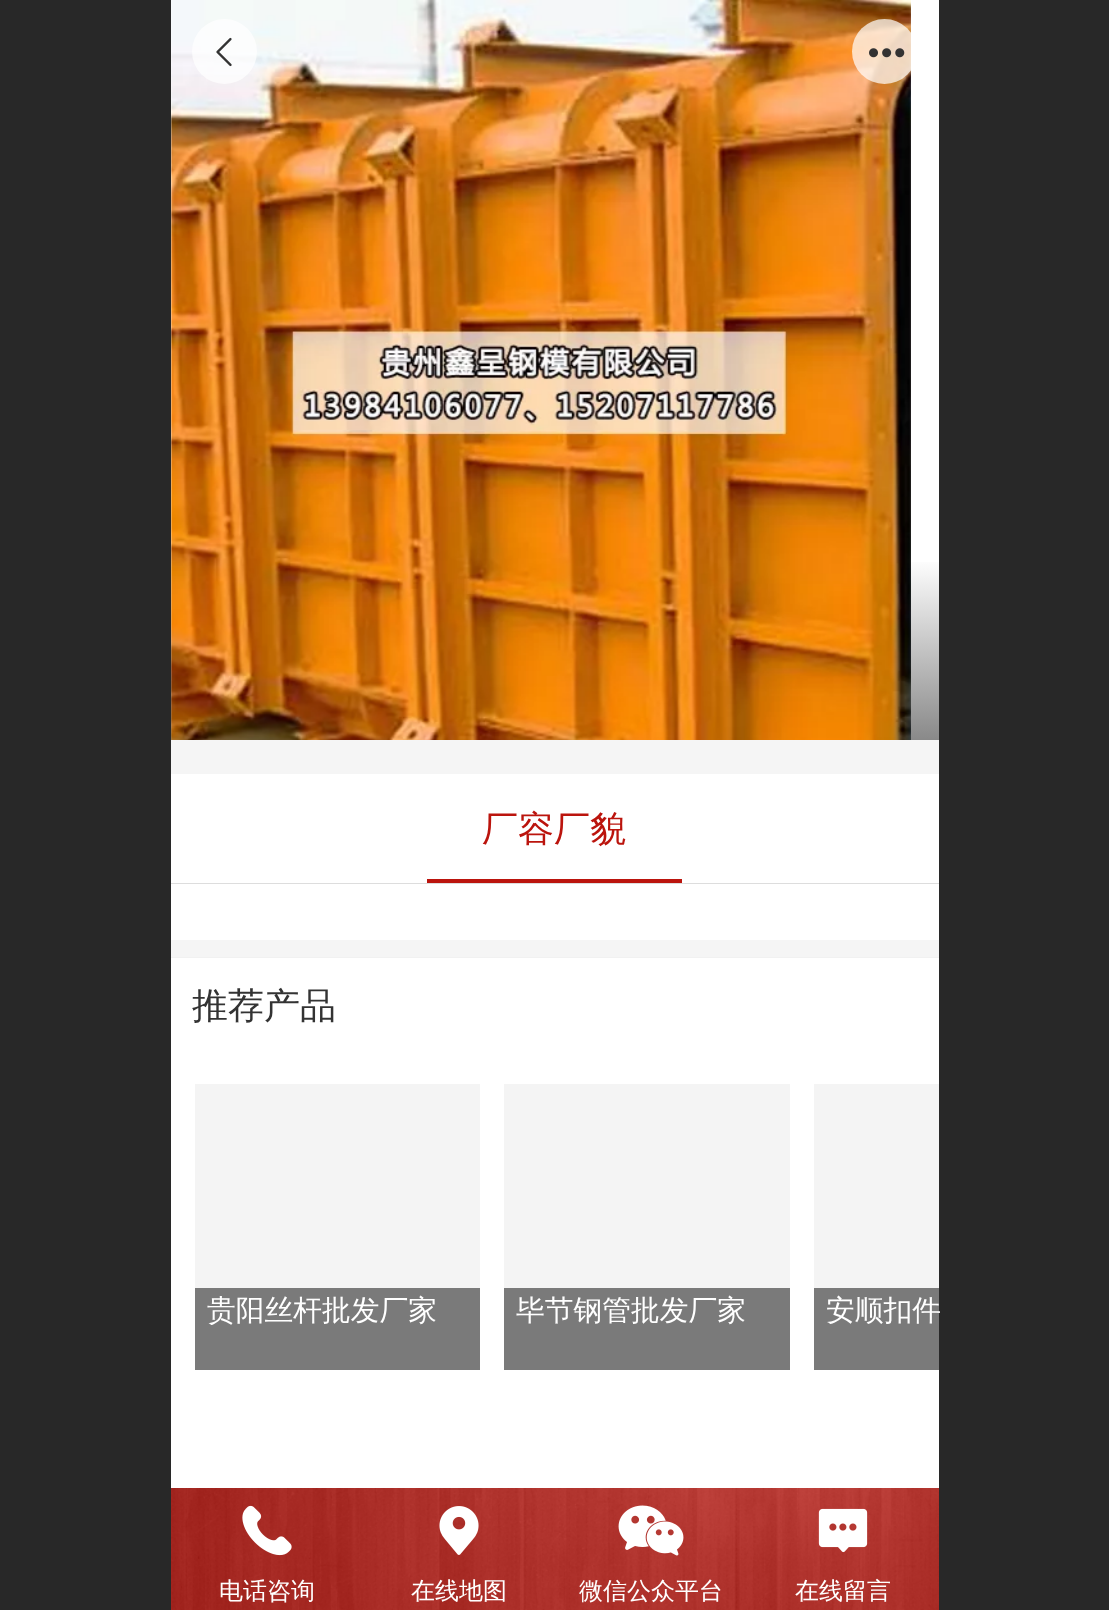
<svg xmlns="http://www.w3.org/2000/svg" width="1109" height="1610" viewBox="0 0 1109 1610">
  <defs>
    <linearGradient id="g1" gradientUnits="userSpaceOnUse" x1="555" y1="558" x2="555" y2="740"><stop offset="0" stop-color="#fff"/><stop offset="1" stop-color="#898989"/></linearGradient>
  </defs>
  <rect width="100%" height="100%" fill="#fff"/>
  <path d="M0 0h171v1610H0z" fill="#282828"/>
  <path d="M171 562h768v178H171z" fill="url(#g1)"/>
  <image x="171" y="0" width="740" height="740" href="img/3.png"/>
  <circle cx="224.5" cy="51.5" r="32.5" fill="#ffffffb3"/>
  <image x="216" y="37" width="16" height="30" href="img/1.png"/>
  <circle cx="884.5" cy="51.5" r="32.5" fill="#ffffffb3"/>
  <image x="869" y="48" width="36" height="10" href="img/2.png"/>
  <path d="M171 740h768v34H171z" fill="#f5f5f5"/>
  <path d="M171 883h768v1H171z" fill="#ddd"/>
  <path d="M427 879h255v4H427z" fill="#bb140d"/>
  <path d="M171 940h768v17H171z" fill="#f5f5f5"/>
  <path d="M171 957h768v1H171z" fill="#f1f1f1"/>
  <path d="M195 1084h285v204H195z" fill="#f4f4f4"/>
  <path d="M195 1288h285v82H195z" fill="#7a7a7a"/>
  <path d="M504 1084h286v204H504z" fill="#f4f4f4"/>
  <path d="M504 1288h286v82H504z" fill="#7a7a7a"/>
  <path d="M814 1084h125v204H814z" fill="#f4f4f4"/>
  <path d="M814 1288h125v82H814z" fill="#7a7a7a"/>
  <path d="M171 1488h768v122H171z" fill="#bb140d"/>
  <image x="171" y="1488" width="768" height="122" href="img/4.png"/>
  <image x="242" y="1505" width="50" height="51" href="img/5.png"/>
  <image x="439" y="1506" width="40" height="49" href="img/6.png"/>
  <image x="618" y="1505" width="66" height="51" href="img/7.png"/>
  <image x="818" y="1508" width="50" height="45" href="img/8.png"/>
  <path d="M939 0h170v1610H939z" fill="#282828"/>
  <text x="482" y="841" font-family="WenQuanYi Zen Hei" font-size="36" font-weight="500" fill="#bb140d">厂容厂貌</text>
  <text x="192" y="1018" font-family="WenQuanYi Zen Hei" font-size="36" font-weight="500" fill="#333">推荐产品</text>
  <g font-family="WenQuanYi Zen Hei" font-size="28.75" font-weight="500" fill="#fff">
    <text x="207" y="1320">贵阳丝杆批发厂家</text>
    <text x="516" y="1320">毕节钢管批发厂家</text>
    <text x="826" y="1320">安顺扣件</text>
  </g>
  <g font-family="WenQuanYi Zen Hei" font-size="24" font-weight="500" fill="#fff">
    <text x="219" y="1599">电话咨询</text>
    <text x="411" y="1599">在线地图</text>
    <text x="579" y="1599">微信公众平台</text>
    <text x="795" y="1599">在线留言</text>
  </g>
</svg>
